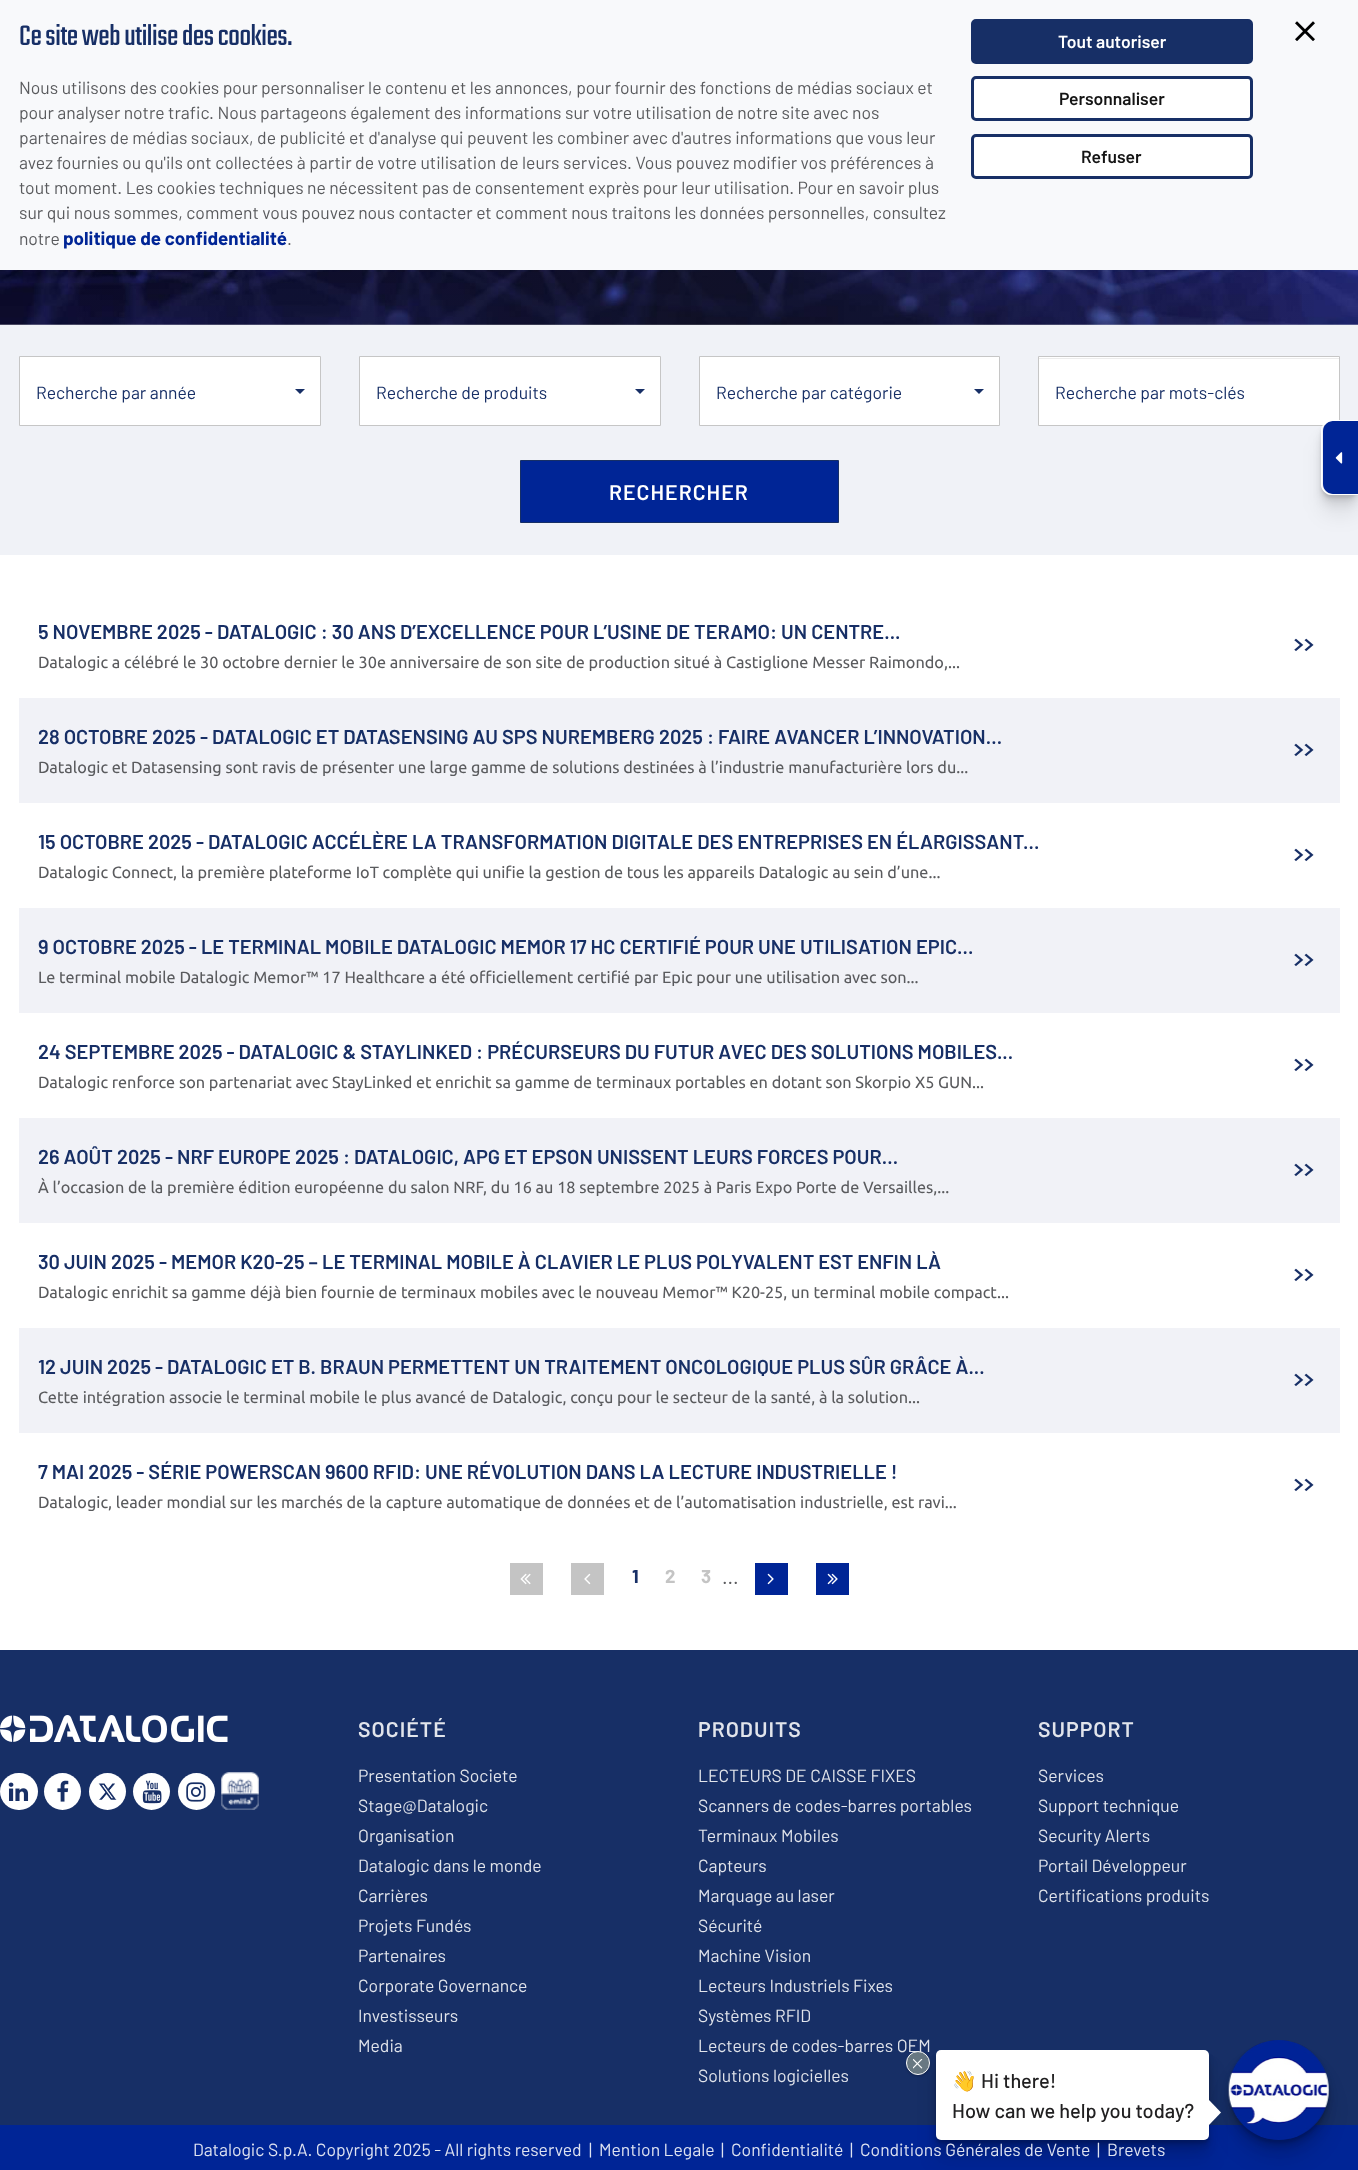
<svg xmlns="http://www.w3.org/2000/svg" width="1358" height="2170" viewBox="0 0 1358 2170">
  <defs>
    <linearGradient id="g1" gradientUnits="userSpaceOnUse" x1="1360" y1="222" x2="-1.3" y2="205"><stop offset="0" stop-color="#151820" stop-opacity="0"/><stop offset="0.39" stop-color="#151820" stop-opacity="0.3"/><stop offset="0.49" stop-color="#151820" stop-opacity="0.4"/><stop offset="0.59" stop-color="#151820" stop-opacity="0.28"/><stop offset="0.99" stop-color="#151820" stop-opacity="0"/></linearGradient>
    <clipPath id="clip1"><path d="M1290 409H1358V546H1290ZM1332 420H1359V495H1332C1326 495 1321 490 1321 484V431C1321 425 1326 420 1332 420Z" clip-rule="evenodd"/></clipPath>
    <clipPath id="clip2"><path d="M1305 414H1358V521H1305ZM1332 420H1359V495H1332C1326 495 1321 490 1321 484V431C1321 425 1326 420 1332 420Z" clip-rule="evenodd"/></clipPath>
    <clipPath id="clip3"><path d="M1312 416H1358V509H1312ZM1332 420H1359V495H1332C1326 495 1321 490 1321 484V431C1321 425 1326 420 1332 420Z" clip-rule="evenodd"/></clipPath>
    <clipPath id="clip4"><path d="M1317 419H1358V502H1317ZM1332 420H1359V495H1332C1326 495 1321 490 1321 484V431C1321 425 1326 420 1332 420Z" clip-rule="evenodd"/></clipPath>
  </defs>
  <rect width="100%" height="100%" fill="#fff"/>
  <path d="M0 0h1358v270H0z" fill="#f8f9fb"/>
  <rect x="972.5" y="20.5" width="279" height="42" rx="3.5" fill="#172f66" stroke="#172f66" stroke-width="3"/>
  <rect x="972.5" y="77.5" width="279" height="42" rx="3.5" fill="#fff" stroke="#172f66" stroke-width="3"/>
  <rect x="972.5" y="135.5" width="279" height="42" rx="3.5" fill="#fff" stroke="#172f66" stroke-width="3"/>
  <image x="1295" y="21" width="20" height="20" href="img/1.png"/>
  <image x="0" y="270" width="1358" height="55" href="img/2.png"/>
  <path d="M76 270h1238v55H76z" fill="url(#g1)"/>
  <path d="M0 325h1358v230H0z" fill="#f0f2f7"/>
  <path d="M19.5 356.5h301v69H19.5z" fill="#fff" stroke="#c6c6c6"/>
  <path d="M295 389H305L300 394Z" fill="#172f66"/>
  <path d="M359.5 356.5h301v69H359.5z" fill="#fff" stroke="#c6c6c6"/>
  <path d="M635 389H645L640 394Z" fill="#172f66"/>
  <path d="M699.5 356.5h300v69H699.5z" fill="#fff" stroke="#c6c6c6"/>
  <path d="M974 389H984L979 394Z" fill="#172f66"/>
  <path d="M1039 357h300v68H1039z" fill="#fff"/>
  <path d="M1039 358h300v1H1039z" fill="#ececec"/>
  <path d="M1038.5 356.5h301v69H1038.5z" fill="none" stroke="#c6c6c6"/>
  <path d="M520.5 460.5h318v62H520.5z" fill="#002596" stroke="#172f66"/>
  <image x="1294" y="638" width="20" height="14" href="img/3.png"/>
  <path d="M19 698h1321v105H19z" fill="#f1f2f7"/>
  <image x="1294" y="743" width="20" height="14" href="img/4.png"/>
  <image x="1294" y="848" width="20" height="14" href="img/3.png"/>
  <path d="M19 908h1321v105H19z" fill="#f1f2f7"/>
  <image x="1294" y="953" width="20" height="14" href="img/4.png"/>
  <image x="1294" y="1058" width="20" height="14" href="img/3.png"/>
  <path d="M19 1118h1321v105H19z" fill="#f1f2f7"/>
  <image x="1294" y="1163" width="20" height="14" href="img/4.png"/>
  <image x="1294" y="1268" width="20" height="14" href="img/3.png"/>
  <path d="M19 1328h1321v105H19z" fill="#f1f2f7"/>
  <image x="1294" y="1373" width="20" height="14" href="img/4.png"/>
  <image x="1294" y="1478" width="20" height="14" href="img/3.png"/>
  <path d="M510 1563h33v32H510z" fill="#c4c4c4"/>
  <image x="520" y="1573" width="11" height="12" href="img/5.png"/>
  <path d="M571 1563h33v32H571z" fill="#c4c4c4"/>
  <image x="584" y="1573" width="7" height="12" href="img/6.png"/>
  <path d="M755 1563h33v32H755z" fill="#002596"/>
  <image x="767" y="1573" width="7" height="12" href="img/7.png"/>
  <path d="M816 1563h33v32H816z" fill="#002596"/>
  <image x="827" y="1573" width="11" height="12" href="img/8.png"/>
  <g clip-path="url(#clip1)">
    <rect x="1321" y="440" width="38" height="75" rx="11" fill="#00000012" filter="blur(10px)"/>
  </g>
  <g clip-path="url(#clip2)">
    <rect x="1321" y="430" width="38" height="75" rx="11" fill="#00000012" filter="blur(5px)"/>
  </g>
  <g clip-path="url(#clip3)">
    <rect x="1321" y="425" width="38" height="75" rx="11" fill="#00000012" filter="blur(2.5px)"/>
  </g>
  <g clip-path="url(#clip4)">
    <rect x="1321" y="423" width="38" height="75" rx="11" fill="#00000012" filter="blur(1px)"/>
  </g>
  <path d="M1333 421H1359V494H1333C1327.5 494 1323 489.5 1323 484V431C1323 425.5 1327.5 421 1333 421Z" fill="#002596"/>
  <path d="M1332 420H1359V495H1332C1326 495 1321 490 1321 484V431C1321 425 1326 420 1332 420ZM1332 421H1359V494H1332C1327 494 1322 489 1322 484V431C1322 426 1327 421 1332 421Z" fill="#fff" fill-rule="evenodd"/>
  <image x="1335" y="452" width="8" height="12" href="img/9.png"/>
  <path d="M0 1650h1358v475H0z" fill="#172f66"/>
  <image x="0" y="1715" width="228" height="28" href="img/10.png"/>
  <rect y="1773" width="38" height="37" rx="18.5" fill="#fff"/>
  <image x="8" y="1782" width="21" height="19" href="img/11.png"/>
  <circle cx="62.5" cy="1791.5" r="18.5" fill="#fff"/>
  <image x="57" y="1780" width="12" height="22" href="img/12.png"/>
  <circle cx="107.5" cy="1791.5" r="18.5" fill="#fff"/>
  <image x="98" y="1783" width="19" height="17" href="img/13.png"/>
  <circle cx="151.5" cy="1791.5" r="18.5" fill="#fff"/>
  <image x="142" y="1780" width="20" height="24" href="img/14.png"/>
  <circle cx="196.5" cy="1791.5" r="18.5" fill="#fff"/>
  <image x="186" y="1782" width="20" height="20" href="img/15.png"/>
  <image x="221" y="1772" width="38" height="38" href="img/16.png"/>
  <path d="M0 2125h1358v45H0z" fill="#002596"/>
  <rect x="1229" y="2060" width="100" height="100" rx="50" fill="#0000001a" filter="blur(10px)"/>
  <rect x="1229" y="2050" width="100" height="100" rx="50" fill="#0000001a" filter="blur(5px)"/>
  <rect x="1229" y="2045" width="100" height="100" rx="50" fill="#0000001a" filter="blur(2.5px)"/>
  <rect x="1229" y="2043" width="100" height="100" rx="50" fill="#0000001a" filter="blur(1px)"/>
  <image x="1228" y="2040" width="101" height="100" href="img/18.png"/>
  <rect x="936" y="2070" width="273" height="90" rx="5" fill="#0000001a" filter="blur(10px)"/>
  <rect x="936" y="2060" width="273" height="90" rx="5" fill="#0000001a" filter="blur(5px)"/>
  <rect x="936" y="2055" width="273" height="90" rx="5" fill="#0000001a" filter="blur(2.5px)"/>
  <rect x="936" y="2053" width="273" height="90" rx="5" fill="#0000001a" filter="blur(1px)"/>
  <rect x="936" y="2050" width="273" height="90" rx="5" fill="#fff"/>
  <rect x="906" y="2053" width="24" height="23" rx="11.5" fill="#00000033" filter="blur(1px)"/>
  <path d="M1209 2125V2100L1221 2112.5Z" fill="#fff"/>
  <text x="19" y="45" font-family="Teko" font-size="31.25" font-weight="300" letter-spacing="-0.4" fill="#172f66">Ce site web utilise des cookies.</text>
  <g font-family="Barlow" font-size="17.5" fill="#5a5b5e">
    <text x="19" y="94">Nous utilisons des cookies pour personnaliser le contenu et les annonces, pour fournir des fonctions de médias sociaux et</text>
    <text x="19" y="119">pour analyser notre trafic. Nous partageons également des informations sur votre utilisation de notre site avec nos</text>
    <text x="19" y="144">partenaires de médias sociaux, de publicité et d'analyse qui peuvent les combiner avec d'autres informations que vous leur</text>
    <text x="19" y="169">avez fournies ou qu'ils ont collectées à partir de votre utilisation de leurs services. Vous pouvez modifier vos préférences à</text>
    <text x="19" y="194">tout moment. Les cookies techniques ne nécessitent pas de consentement exprès pour leur utilisation. Pour en savoir plus</text>
    <text x="19" y="219">sur qui nous sommes, comment vous pouvez nous contacter et comment nous traitons les données personnelles, consultez</text>
    <text x="19" y="245">notre</text>
  </g>
  <text x="63" y="245" font-family="Barlow" font-size="18.75" font-weight="bold" fill="#002596">politique de confidentialité</text>
  <text x="287" y="245" font-family="Barlow" font-size="17.5" fill="#5a5b5e">.</text>
  <text x="1058" y="48" font-family="Barlow" font-size="17.5" font-weight="600" fill="#fff">Tout autoriser</text>
  <g font-family="Barlow" font-size="17.5" font-weight="600" fill="#141414">
    <text x="1059" y="105">Personnaliser</text>
    <text x="1081" y="163">Refuser</text>
  </g>
  <g font-family="Barlow" font-size="17.5" fill="#172f66">
    <text x="36" y="399">Recherche par année</text>
    <text x="376" y="399">Recherche de produits</text>
    <text x="716" y="399">Recherche par catégorie</text>
    <text x="1055" y="399">Recherche par mots-clés</text>
  </g>
  <text x="609" y="500" font-family="Barlow" font-size="21.25" font-weight="600" letter-spacing="1" fill="#fff">RECHERCHER</text>
  <text x="38" y="639" font-family="Barlow" font-size="20" font-weight="600" fill="#172f66">5 NOVEMBRE 2025 - DATALOGIC : 30 ANS D’EXCELLENCE POUR L’USINE DE TERAMO: UN CENTRE...</text>
  <text x="38" y="668" font-family="Ubuntu" font-size="16.25" fill="#5a5b5e">Datalogic a célébré le 30 octobre dernier le 30e anniversaire de son site de production situé à Castiglione Messer Raimondo,...</text>
  <text x="38" y="744" font-family="Barlow" font-size="20" font-weight="600" fill="#172f66">28 OCTOBRE 2025 - DATALOGIC ET DATASENSING AU SPS NUREMBERG 2025 : FAIRE AVANCER L’INNOVATION...</text>
  <text x="38" y="773" font-family="Ubuntu" font-size="16.25" fill="#5a5b5e">Datalogic et Datasensing sont ravis de présenter une large gamme de solutions destinées à l’industrie manufacturière lors du...</text>
  <text x="38" y="849" font-family="Barlow" font-size="20" font-weight="600" fill="#172f66">15 OCTOBRE 2025 - DATALOGIC ACCÉLÈRE LA TRANSFORMATION DIGITALE DES ENTREPRISES EN ÉLARGISSANT...</text>
  <text x="38" y="878" font-family="Ubuntu" font-size="16.25" fill="#5a5b5e">Datalogic Connect, la première plateforme IoT complète qui unifie la gestion de tous les appareils Datalogic au sein d’une...</text>
  <text x="38" y="954" font-family="Barlow" font-size="20" font-weight="600" fill="#172f66">9 OCTOBRE 2025 - LE TERMINAL MOBILE DATALOGIC MEMOR 17 HC CERTIFIÉ POUR UNE UTILISATION EPIC...</text>
  <text x="38" y="983" font-family="Ubuntu" font-size="16.25" fill="#5a5b5e">Le terminal mobile Datalogic Memor™ 17 Healthcare a été officiellement certifié par Epic pour une utilisation avec son...</text>
  <text x="38" y="1059" font-family="Barlow" font-size="20" font-weight="600" fill="#172f66">24 SEPTEMBRE 2025 - DATALOGIC &amp; STAYLINKED : PRÉCURSEURS DU FUTUR AVEC DES SOLUTIONS MOBILES...</text>
  <text x="38" y="1088" font-family="Ubuntu" font-size="16.25" fill="#5a5b5e">Datalogic renforce son partenariat avec StayLinked et enrichit sa gamme de terminaux portables en dotant son Skorpio X5 GUN...</text>
  <text x="38" y="1164" font-family="Barlow" font-size="20" font-weight="600" fill="#172f66">26 AOÛT 2025 - NRF EUROPE 2025 : DATALOGIC, APG ET EPSON UNISSENT LEURS FORCES POUR...</text>
  <text x="38" y="1193" font-family="Ubuntu" font-size="16.25" fill="#5a5b5e">À l’occasion de la première édition européenne du salon NRF, du 16 au 18 septembre 2025 à Paris Expo Porte de Versailles,...</text>
  <text x="38" y="1269" font-family="Barlow" font-size="20" font-weight="600" fill="#172f66">30 JUIN 2025 - MEMOR K20-25 – LE TERMINAL MOBILE À CLAVIER LE PLUS POLYVALENT EST ENFIN LÀ</text>
  <text x="38" y="1298" font-family="Ubuntu" font-size="16.25" fill="#5a5b5e">Datalogic enrichit sa gamme déjà bien fournie de terminaux mobiles avec le nouveau Memor™ K20-25, un terminal mobile compact...</text>
  <text x="38" y="1374" font-family="Barlow" font-size="20" font-weight="600" fill="#172f66">12 JUIN 2025 - DATALOGIC ET B. BRAUN PERMETTENT UN TRAITEMENT ONCOLOGIQUE PLUS SÛR GRÂCE À...</text>
  <text x="38" y="1403" font-family="Ubuntu" font-size="16.25" fill="#5a5b5e">Cette intégration associe le terminal mobile le plus avancé de Datalogic, conçu pour le secteur de la santé, à la solution...</text>
  <text x="38" y="1479" font-family="Barlow" font-size="20" font-weight="600" fill="#172f66">7 MAI 2025 - SÉRIE POWERSCAN 9600 RFID: UNE RÉVOLUTION DANS LA LECTURE INDUSTRIELLE !</text>
  <text x="38" y="1508" font-family="Ubuntu" font-size="16.25" fill="#5a5b5e">Datalogic, leader mondial sur les marchés de la capture automatique de données et de l’automatisation industrielle, est ravi...</text>
  <text x="632" y="1583" font-family="Barlow" font-size="18.75" font-weight="bold" fill="#172f66">1</text>
  <g font-family="Barlow" font-size="18.75" font-weight="bold" fill="#c4c4c4">
    <text x="665" y="1583">2</text>
    <text x="701" y="1583">3</text>
  </g>
  <text x="722" y="1584" font-family="Barlow" font-size="20" fill="#5a5b5e">...</text>
  <text x="358" y="1737" font-family="Barlow" font-size="21.25" font-weight="600" letter-spacing="1" fill="#e1e4eb">SOCIÉTÉ</text>
  <g font-family="Barlow" font-size="17.5" fill="#e1e4eb">
    <text x="358" y="1782">Presentation Societe</text>
    <text x="358" y="1812">Stage@Datalogic</text>
    <text x="358" y="1842">Organisation</text>
    <text x="358" y="1872">Datalogic dans le monde</text>
    <text x="358" y="1902">Carrières</text>
    <text x="358" y="1932">Projets Fundés</text>
    <text x="358" y="1962">Partenaires</text>
    <text x="358" y="1992">Corporate Governance</text>
    <text x="358" y="2022">Investisseurs</text>
    <text x="358" y="2052">Media</text>
  </g>
  <text x="698" y="1737" font-family="Barlow" font-size="21.25" font-weight="600" letter-spacing="1" fill="#e1e4eb">PRODUITS</text>
  <g font-family="Barlow" font-size="17.5" fill="#e1e4eb">
    <text x="698" y="1782">LECTEURS DE CAISSE FIXES</text>
    <text x="698" y="1812">Scanners de codes-barres portables</text>
    <text x="698" y="1842">Terminaux Mobiles</text>
    <text x="698" y="1872">Capteurs</text>
    <text x="698" y="1902">Marquage au laser</text>
    <text x="698" y="1932">Sécurité</text>
    <text x="698" y="1962">Machine Vision</text>
    <text x="698" y="1992">Lecteurs Industriels Fixes</text>
    <text x="698" y="2022">Systèmes RFID</text>
    <text x="698" y="2052">Lecteurs de codes-barres OEM</text>
    <text x="698" y="2082">Solutions logicielles</text>
  </g>
  <text x="1038" y="1737" font-family="Barlow" font-size="21.25" font-weight="600" letter-spacing="1" fill="#e1e4eb">SUPPORT</text>
  <g font-family="Barlow" font-size="17.5" fill="#e1e4eb">
    <text x="1038" y="1782">Services</text>
    <text x="1038" y="1812">Support technique</text>
    <text x="1038" y="1842">Security Alerts</text>
    <text x="1038" y="1872">Portail Développeur</text>
    <text x="1038" y="1902">Certifications produits</text>
  </g>
  <g font-family="Barlow" font-size="17.5" fill="#dee3f1">
    <text x="193" y="2156">Datalogic S.p.A. Copyright 2025 - All rights reserved</text>
    <text x="589" y="2156">|</text>
    <text x="599" y="2156">Mention Legale</text>
    <text x="721" y="2156">|</text>
    <text x="731" y="2156">Confidentialité</text>
    <text x="850" y="2156">|</text>
    <text x="860" y="2156">Conditions Générales de Vente</text>
    <text x="1097" y="2156">|</text>
    <text x="1107" y="2156">Brevets</text>
  </g>
  <circle cx="918" cy="2063" r="11.5" fill="#687882" stroke="#fff"/>
  <image x="913" y="2059" width="10" height="10" href="img/17.png"/>
  <text x="952" y="2088" font-family="Noto Color Emoji" font-size="20" fill="#212021">👋</text>
  <g font-family="Barlow" font-size="20" font-weight="500" fill="#212021">
    <text x="981" y="2088">Hi there!</text>
    <text x="952" y="2118">How can we help you today?</text>
  </g>
</svg>
